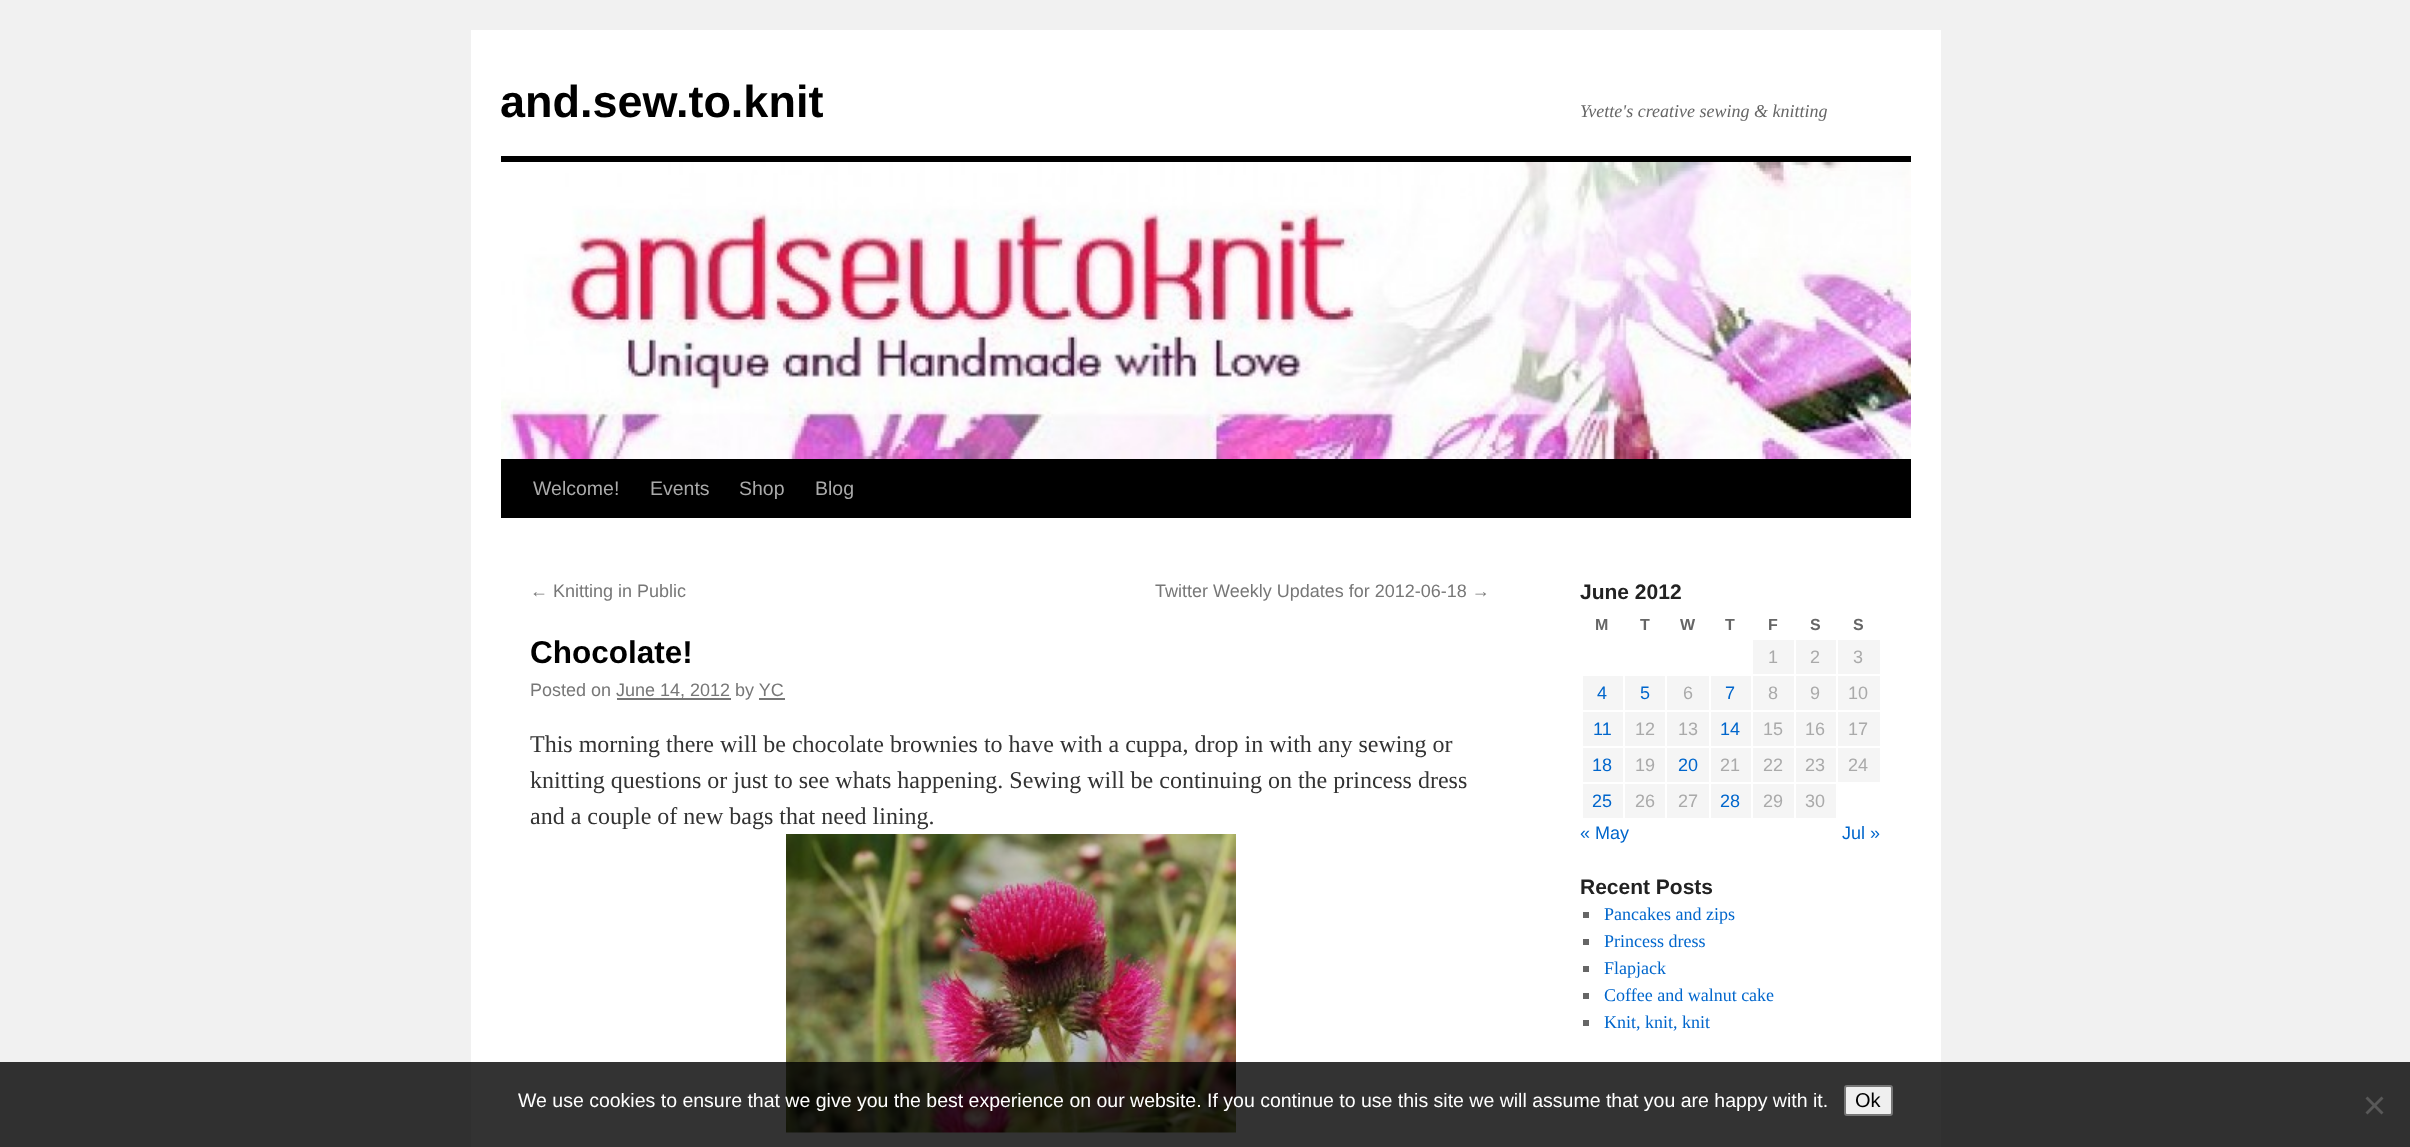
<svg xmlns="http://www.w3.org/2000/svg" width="2410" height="1147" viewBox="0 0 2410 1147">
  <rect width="100%" height="100%" fill="#f1f1f1"/>
  <path d="M471 30h1470v1117H471z" fill="#fff"/>
  <path d="M501 156h1410v6H501z" fill="#000"/>
  <path d="M501 459h1410v59H501z" fill="#000"/>
  <image x="501" y="162" width="1410" height="297" href="img/1.png"/>
  <path d="M617 698h114v2H617z" fill="#777"/>
  <path d="M759 698h26v2H759z" fill="#777"/>
  <image x="786" y="834" width="450" height="299" href="img/2.png"/>
  <path d="M1753 640h41v34H1753z" fill="#f5f5f5"/>
  <path d="M1796 640h40v34H1796z" fill="#f5f5f5"/>
  <path d="M1838 640h42v34H1838z" fill="#f5f5f5"/>
  <path d="M1583 676h40v34H1583z" fill="#f5f5f5"/>
  <path d="M1625 676h40v34H1625z" fill="#f5f5f5"/>
  <path d="M1667 676h42v34H1667z" fill="#f5f5f5"/>
  <path d="M1711 676h40v34H1711z" fill="#f5f5f5"/>
  <path d="M1753 676h41v34H1753z" fill="#f5f5f5"/>
  <path d="M1796 676h40v34H1796z" fill="#f5f5f5"/>
  <path d="M1838 676h42v34H1838z" fill="#f5f5f5"/>
  <path d="M1583 712h40v34H1583z" fill="#f5f5f5"/>
  <path d="M1625 712h40v34H1625z" fill="#f5f5f5"/>
  <path d="M1667 712h42v34H1667z" fill="#f5f5f5"/>
  <path d="M1711 712h40v34H1711z" fill="#f5f5f5"/>
  <path d="M1753 712h41v34H1753z" fill="#f5f5f5"/>
  <path d="M1796 712h40v34H1796z" fill="#f5f5f5"/>
  <path d="M1838 712h42v34H1838z" fill="#f5f5f5"/>
  <path d="M1583 748h40v34H1583z" fill="#f5f5f5"/>
  <path d="M1625 748h40v34H1625z" fill="#f5f5f5"/>
  <path d="M1667 748h42v34H1667z" fill="#f5f5f5"/>
  <path d="M1711 748h40v34H1711z" fill="#f5f5f5"/>
  <path d="M1753 748h41v34H1753z" fill="#f5f5f5"/>
  <path d="M1796 748h40v34H1796z" fill="#f5f5f5"/>
  <path d="M1838 748h42v34H1838z" fill="#f5f5f5"/>
  <path d="M1583 784h40v34H1583z" fill="#f5f5f5"/>
  <path d="M1625 784h40v34H1625z" fill="#f5f5f5"/>
  <path d="M1667 784h42v34H1667z" fill="#f5f5f5"/>
  <path d="M1711 784h40v34H1711z" fill="#f5f5f5"/>
  <path d="M1753 784h41v34H1753z" fill="#f5f5f5"/>
  <path d="M1796 784h40v34H1796z" fill="#f5f5f5"/>
  <path d="M1583 912h6v6H1583z" fill="#666"/>
  <path d="M1583 939h6v6H1583z" fill="#666"/>
  <path d="M1583 966h6v6H1583z" fill="#666"/>
  <path d="M1583 993h6v6H1583z" fill="#666"/>
  <path d="M1583 1020h6v6H1583z" fill="#666"/>
  <path d="M1583 1101h6v6H1583z" fill="#666"/>
  <path d="M0 1062h2410v85H0z" fill="#000000cc"/>
  <rect x="1845" y="1086" width="47" height="29" rx="2" fill="#efefef" stroke="#767676" stroke-width="2"/>
  <path d="M2381.5 1096.5L2383.5 1098.5L2367.5 1114.5L2365.5 1112.5Z" fill="#585858"/>
  <path d="M2365.5 1098.5L2367.5 1096.5L2383.5 1112.5L2381.5 1114.5Z" fill="#585858"/>
  <text x="500" y="117" font-family="Liberation Sans" font-size="45" font-weight="bold" fill="#000">and.sew.to.knit</text>
  <text x="1580" y="117" font-family="Liberation Serif" font-size="18" font-style="italic" fill="#666">Yvette's creative sewing &amp; knitting</text>
  <g font-family="Liberation Sans" font-size="19.5" fill="#aaa">
    <text x="533" y="495">Welcome!</text>
    <text x="650" y="495">Events</text>
    <text x="739" y="495">Shop</text>
    <text x="815" y="495">Blog</text>
  </g>
  <g font-family="Liberation Sans" font-size="18" fill="#777">
    <text x="530" y="597">← Knitting in Public</text>
    <text x="1155" y="597">Twitter Weekly Updates for 2012-06-18 →</text>
  </g>
  <text x="530" y="663" font-family="Liberation Sans" font-size="31.5" font-weight="bold" fill="#000">Chocolate!</text>
  <g font-family="Liberation Sans" font-size="18" fill="#777">
    <text x="530" y="696">Posted on</text>
    <text x="616" y="696">June 14, 2012 by YC</text>
  </g>
  <g font-family="Liberation Serif" font-size="24" fill="#333">
    <text x="530" y="752">This morning there will be chocolate brownies to have with a cuppa, drop in with any sewing or</text>
    <text x="530" y="788">knitting questions or just to see whats happening. Sewing will be continuing on the princess dress</text>
    <text x="530" y="824">and a couple of new bags that need lining.</text>
  </g>
  <text x="1580" y="599" font-family="Liberation Sans" font-size="21" font-weight="bold" fill="#222">June 2012</text>
  <g font-family="Liberation Sans" font-size="16" font-weight="bold" fill="#666">
    <text x="1595" y="630">M</text>
    <text x="1640" y="630">T</text>
    <text x="1680" y="630">W</text>
    <text x="1725" y="630">T</text>
    <text x="1768" y="630">F</text>
    <text x="1810" y="630">S</text>
    <text x="1853" y="630">S</text>
  </g>
  <g font-family="Liberation Sans" font-size="18" fill="#aaa">
    <text x="1768" y="663">1</text>
    <text x="1810" y="663">2</text>
    <text x="1853" y="663">3</text>
  </g>
  <g font-family="Liberation Sans" font-size="18" fill="#06c">
    <text x="1597" y="699">4</text>
    <text x="1640" y="699">5</text>
  </g>
  <text x="1683" y="699" font-family="Liberation Sans" font-size="18" fill="#aaa">6</text>
  <text x="1725" y="699" font-family="Liberation Sans" font-size="18" fill="#06c">7</text>
  <g font-family="Liberation Sans" font-size="18" fill="#aaa">
    <text x="1768" y="699">8</text>
    <text x="1810" y="699">9</text>
    <text x="1848" y="699">10</text>
  </g>
  <text x="1593" y="735" font-family="Liberation Sans" font-size="18" fill="#06c">11</text>
  <g font-family="Liberation Sans" font-size="18" fill="#aaa">
    <text x="1635" y="735">12</text>
    <text x="1678" y="735">13</text>
  </g>
  <text x="1720" y="735" font-family="Liberation Sans" font-size="18" fill="#06c">14</text>
  <g font-family="Liberation Sans" font-size="18" fill="#aaa">
    <text x="1763" y="735">15</text>
    <text x="1805" y="735">16</text>
    <text x="1848" y="735">17</text>
  </g>
  <text x="1592" y="771" font-family="Liberation Sans" font-size="18" fill="#06c">18</text>
  <text x="1635" y="771" font-family="Liberation Sans" font-size="18" fill="#aaa">19</text>
  <text x="1678" y="771" font-family="Liberation Sans" font-size="18" fill="#06c">20</text>
  <g font-family="Liberation Sans" font-size="18" fill="#aaa">
    <text x="1720" y="771">21</text>
    <text x="1763" y="771">22</text>
    <text x="1805" y="771">23</text>
    <text x="1848" y="771">24</text>
  </g>
  <text x="1592" y="807" font-family="Liberation Sans" font-size="18" fill="#06c">25</text>
  <g font-family="Liberation Sans" font-size="18" fill="#aaa">
    <text x="1635" y="807">26</text>
    <text x="1678" y="807">27</text>
  </g>
  <text x="1720" y="807" font-family="Liberation Sans" font-size="18" fill="#06c">28</text>
  <g font-family="Liberation Sans" font-size="18" fill="#aaa">
    <text x="1763" y="807">29</text>
    <text x="1805" y="807">30</text>
  </g>
  <g font-family="Liberation Sans" font-size="18" fill="#06c">
    <text x="1580" y="839">« May</text>
    <text x="1842" y="839">Jul »</text>
  </g>
  <text x="1580" y="894" font-family="Liberation Sans" font-size="21" font-weight="bold" fill="#222">Recent Posts</text>
  <g font-family="Liberation Serif" font-size="18" fill="#06c">
    <text x="1604" y="920">Pancakes and zips</text>
    <text x="1604" y="947">Princess dress</text>
    <text x="1604" y="974">Flapjack</text>
    <text x="1604" y="1001">Coffee and walnut cake</text>
    <text x="1604" y="1028">Knit, knit, knit</text>
  </g>
  <text x="518" y="1107" font-family="Liberation Sans" font-size="19.5" fill="#fff">We use cookies to ensure that we give you the best experience on our website. If you continue to use this site we will assume that you are happy with it.</text>
  <text x="1855" y="1107" font-family="Liberation Sans" font-size="20" fill="#000">Ok</text>
</svg>
